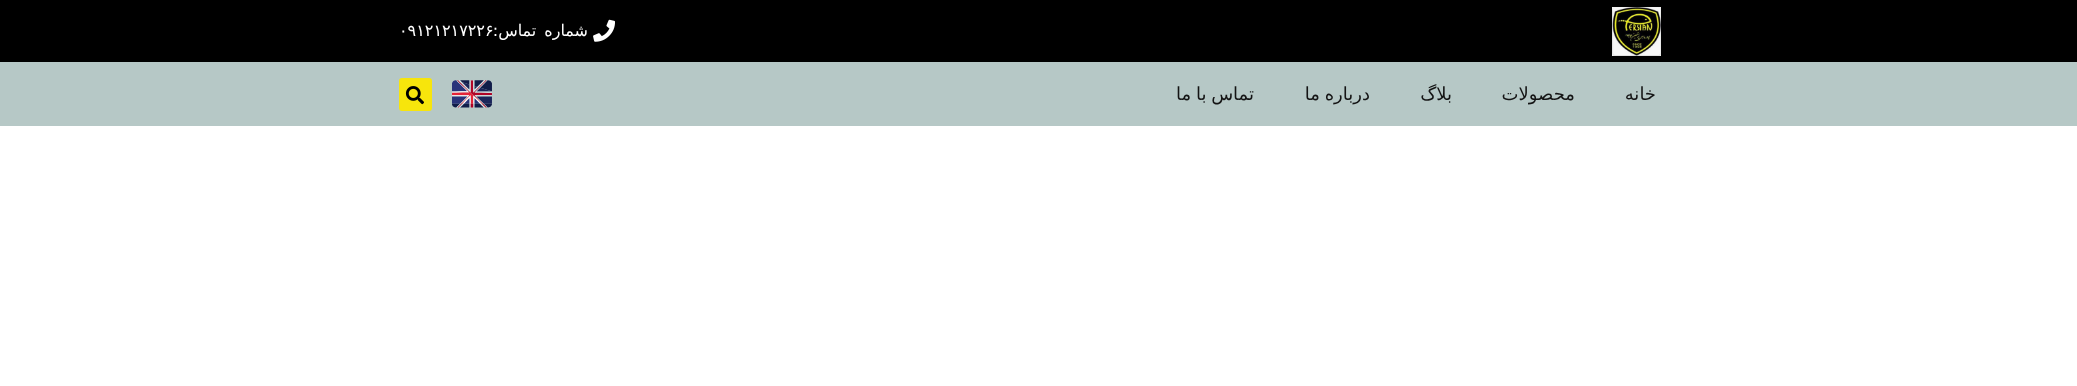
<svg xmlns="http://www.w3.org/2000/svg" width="2077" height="386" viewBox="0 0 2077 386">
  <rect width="100%" height="100%" fill="#fff"/>
  <path d="M0 0h2077v62H0z" fill="#000"/>
  <image x="1612" y="7" width="49" height="49" href="img/1.png"/>
  <image x="593" y="19" width="22" height="23" href="img/2.png"/>
  <path d="M0 62h2077v64H0z" fill="#b6c8c6"/>
  <image x="452" y="80" width="40" height="28" href="img/3.png"/>
  <rect x="399" y="78" width="33" height="33" rx="3" fill="#f7e50c"/>
  <image x="405" y="86" width="19" height="19" href="img/4.png"/>
  <text x="588" y="36" word-spacing="3" font-family="DejaVu Sans" font-size="16" direction="rtl" fill="#fff">شماره تماس:</text>
  <text x="399" y="36" font-family="DejaVu Sans" font-size="16" fill="#fff">۰۹۱۲۱۲۱۷۲۲۶</text>
  <g font-family="DejaVu Sans" font-size="18" direction="rtl" fill="#141414">
    <text x="1656" y="100">خانه</text>
    <text x="1575" y="100">محصولات</text>
    <text x="1452" y="100">بلاگ</text>
    <text x="1370" y="100" word-spacing="-1">درباره ما</text>
    <text x="1254" y="100" word-spacing="-1">تماس با ما</text>
  </g>
</svg>
